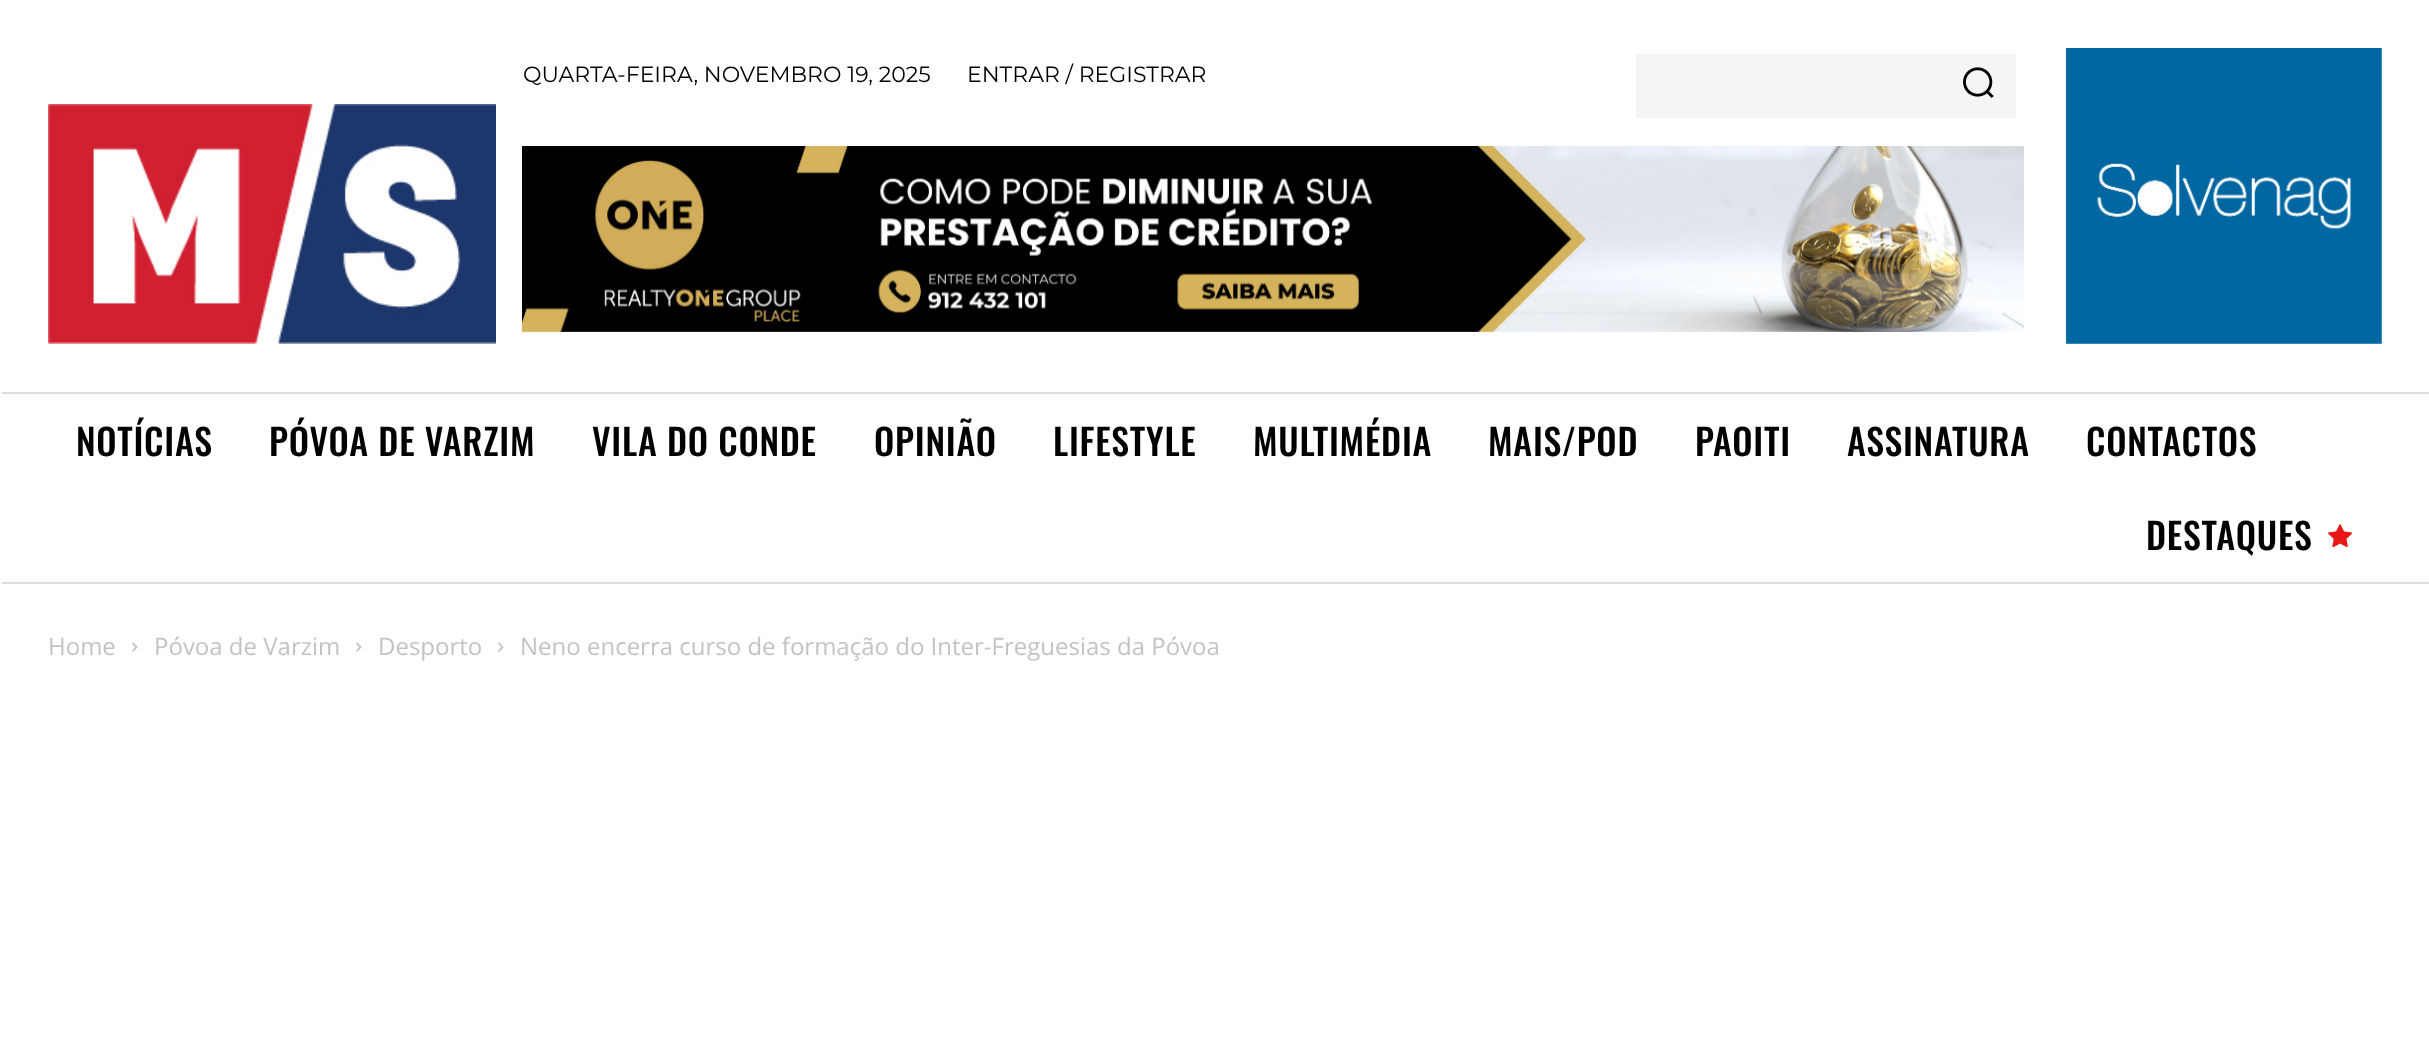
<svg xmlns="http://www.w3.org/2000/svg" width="2429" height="1049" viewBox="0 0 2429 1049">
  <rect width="100%" height="100%" fill="#fff"/>
  <path d="M1636 54h380v64H1636z" fill="#f5f5f5"/>
  <image x="1963" y="67" width="31" height="31" href="img/1.png"/>
  <image x="522" y="146" width="1502" height="186" href="img/2.png"/>
  <image x="2065" y="48" width="317" height="296" href="img/3.png"/>
  <image x="48" y="104" width="448" height="240" href="img/4.png"/>
  <path d="M2 392h2427v2H2z" fill="#ddd"/>
  <path d="M2 582h2427v2H2z" fill="#ddd"/>
  <image x="2328" y="524" width="25" height="24" href="img/5.png"/>
  <image x="132" y="642" width="6" height="10" href="img/6.png"/>
  <image x="356" y="642" width="6" height="10" href="img/6.png"/>
  <image x="498" y="642" width="6" height="10" href="img/6.png"/>
  <g font-family="Montserrat" font-size="22" fill="#000">
    <text x="523" y="82">QUARTA-FEIRA, NOVEMBRO 19, 2025</text>
    <text x="967" y="82">ENTRAR / REGISTRAR</text>
  </g>
  <g font-family="Oswald" font-size="36" font-weight="500" letter-spacing="0.75" fill="#000">
    <text x="76" y="456">NOTÍCIAS</text>
    <text x="269" y="456">PÓVOA DE VARZIM</text>
    <text x="592" y="456">VILA DO CONDE</text>
    <text x="874" y="456">OPINIÃO</text>
    <text x="1053" y="456">LIFESTYLE</text>
    <text x="1253" y="456">MULTIMÉDIA</text>
    <text x="1488" y="456">MAIS/POD</text>
    <text x="1695" y="456">PAOITI</text>
    <text x="1847" y="456">ASSINATURA</text>
    <text x="2086" y="456">CONTACTOS</text>
    <text x="2146" y="550">DESTAQUES</text>
  </g>
  <g font-family="Open Sans" font-size="24" fill="#c3c3c3">
    <text x="48" y="655">Home</text>
    <text x="154" y="655">Póvoa de Varzim</text>
    <text x="378" y="655">Desporto</text>
    <text x="520" y="655">Neno encerra curso de formação do Inter-Freguesias da Póvoa</text>
  </g>
</svg>
